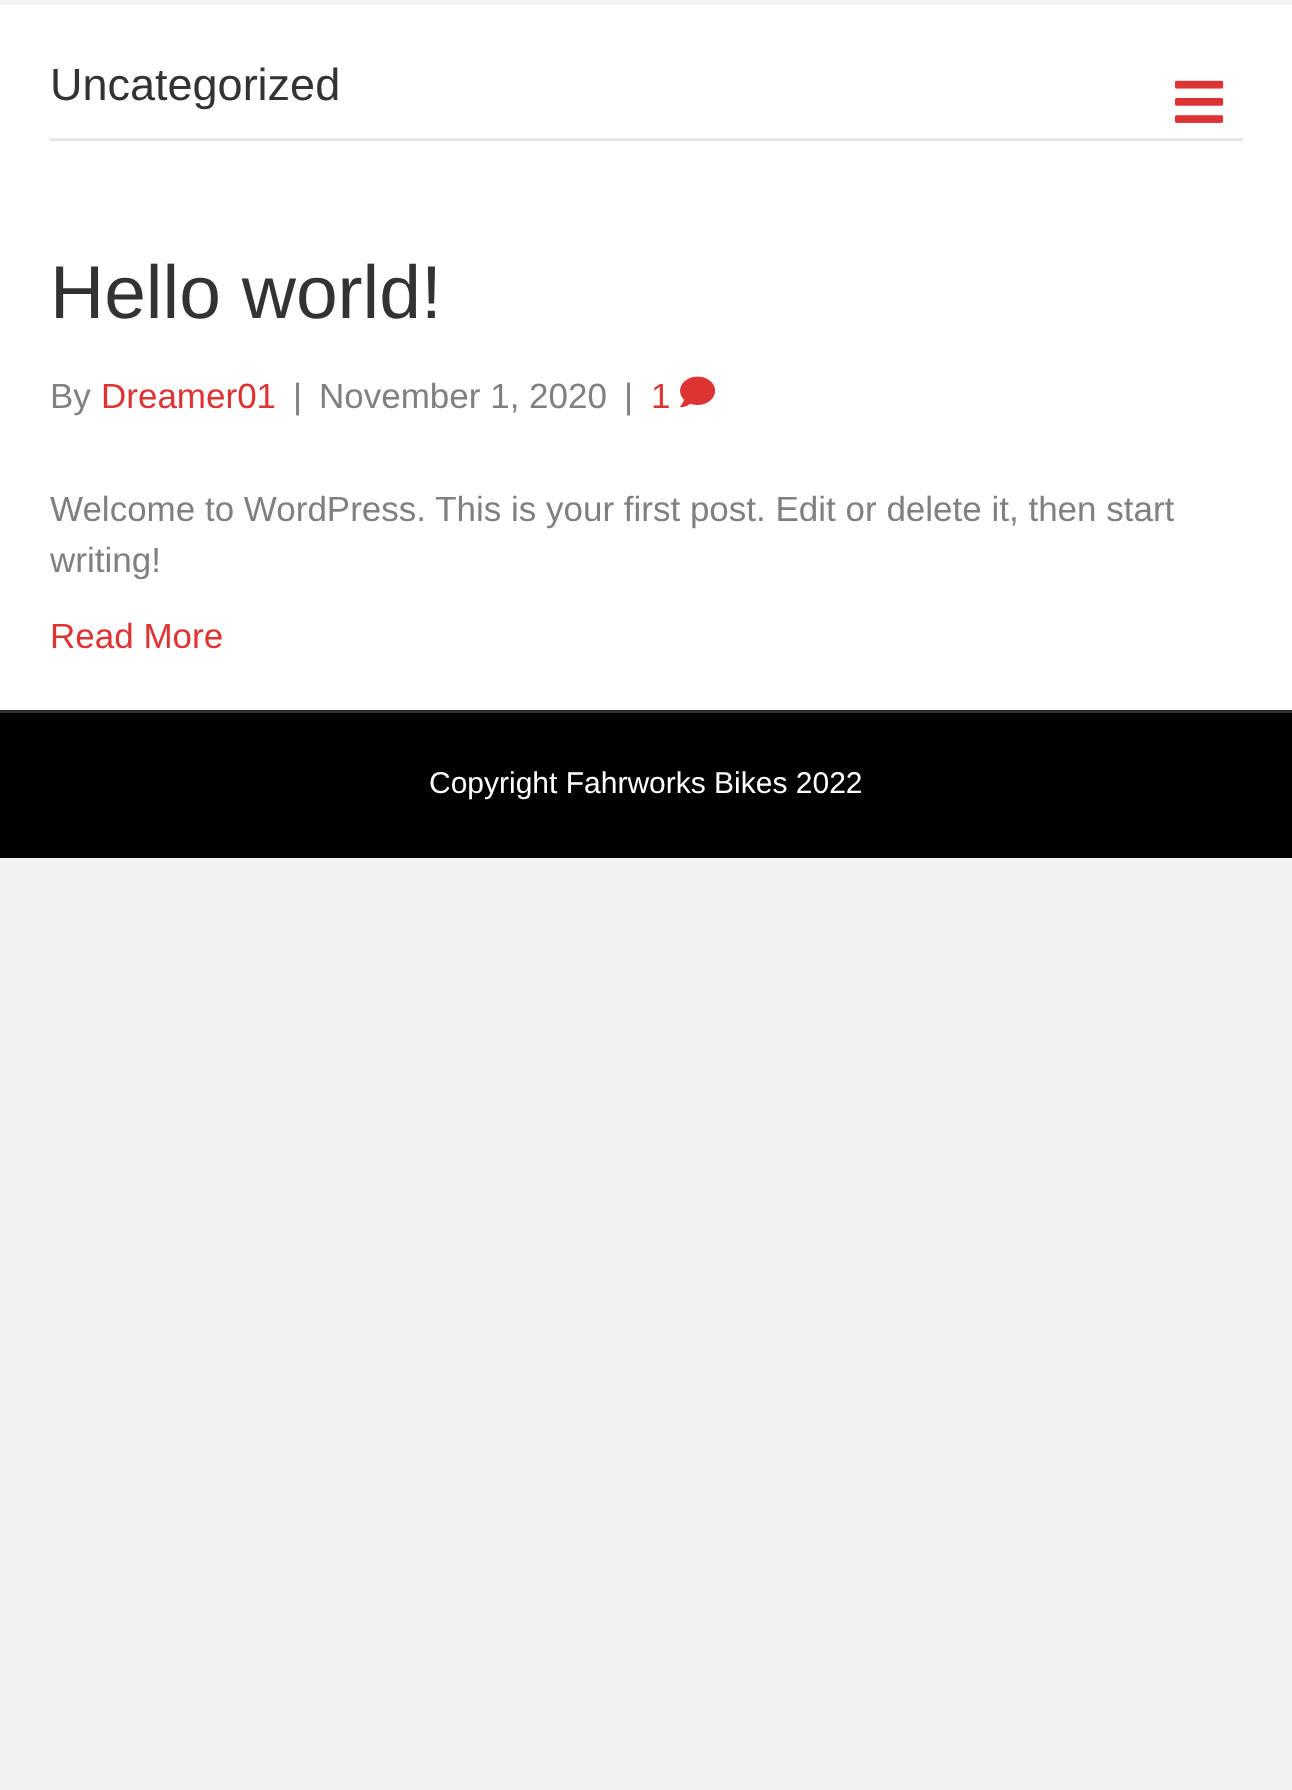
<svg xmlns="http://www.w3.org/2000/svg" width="1292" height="1790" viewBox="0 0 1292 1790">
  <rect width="100%" height="100%" fill="#f2f2f2"/>
  <path d="M0 5h1292v705H0z" fill="#fff"/>
  <path d="M50 138h1193v3H50z" fill="#e6e6e6"/>
  <image x="680" y="376" width="36" height="32" href="img/1.png"/>
  <image x="1175" y="80" width="49" height="43" href="img/2.png"/>
  <path d="M0 713h1292v145H0z" fill="#000"/>
  <path d="M0 710h1292v3H0z" fill="#303030"/>
  <text x="50" y="100" font-family="Liberation Sans" font-size="45" fill="#333">Uncategorized</text>
  <text x="50" y="318" font-family="Liberation Sans" font-size="75" fill="#333">Hello world!</text>
  <text x="50" y="408" font-family="Liberation Sans" font-size="35" fill="#808080">By</text>
  <text x="101" y="408" font-family="Liberation Sans" font-size="35" fill="#d33">Dreamer01</text>
  <g font-family="Liberation Sans" font-size="35" fill="#808080">
    <text x="293" y="408">|</text>
    <text x="319" y="408">November 1, 2020</text>
    <text x="624" y="408">|</text>
  </g>
  <text x="651" y="408" font-family="Liberation Sans" font-size="35" fill="#d33">1</text>
  <g font-family="Liberation Sans" font-size="35" fill="#808080">
    <text x="50" y="521">Welcome to WordPress. This is your first post. Edit or delete it, then start</text>
    <text x="50" y="572">writing!</text>
  </g>
  <text x="50" y="648" font-family="Liberation Sans" font-size="35" fill="#d33">Read More</text>
  <text x="429" y="793" font-family="Liberation Sans" font-size="30" fill="#fff">Copyright Fahrworks Bikes 2022</text>
</svg>
